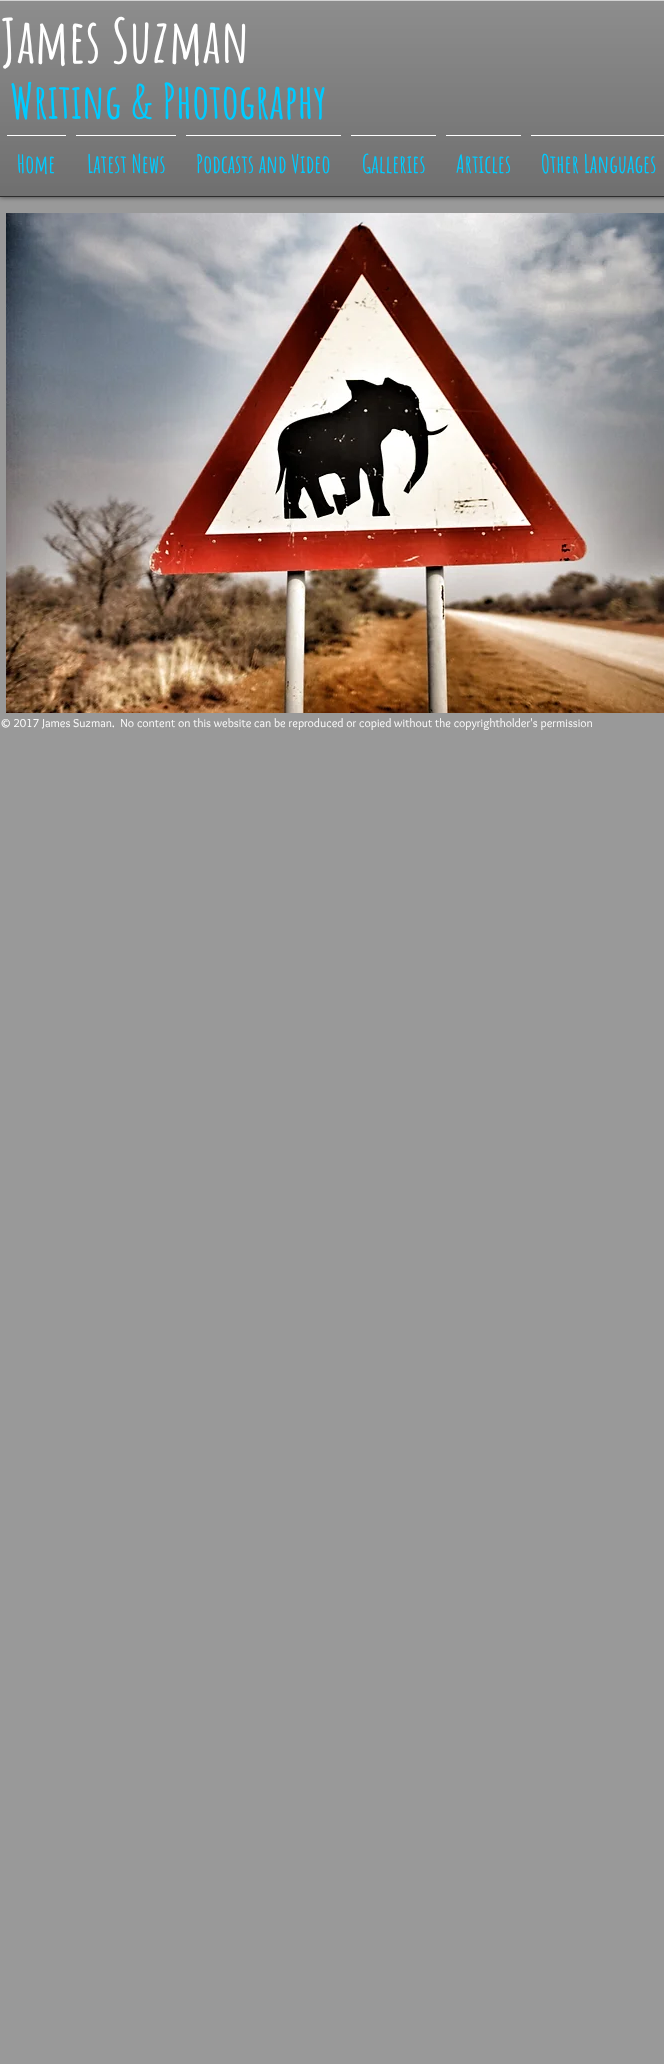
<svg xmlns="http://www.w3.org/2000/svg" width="664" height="2064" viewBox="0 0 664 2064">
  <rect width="100%" height="100%" fill="#999"/>
  <path d="M0 0h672v197H0z" fill="#00000099" filter="blur(2.5px)"/>
  <path d="M0 1h664v195H0z" fill="#666"/>
  <image x="0" y="1" width="664" height="195" href="img/1.png"/>
  <path d="M0 196h664v1H0z" fill="#2d2d2d"/>
  <path d="M0 0h664v1H0z" fill="#d2d2d2"/>
  <path d="M7 135h59v1H7z" fill="#fff"/>
  <path d="M76 135h100v1H76z" fill="#fff"/>
  <path d="M186 135h155v1H186z" fill="#fff"/>
  <path d="M351 135h85v1H351z" fill="#fff"/>
  <path d="M446 135h75v1H446z" fill="#fff"/>
  <path d="M531 135h133v1H531z" fill="#fff"/>
  <image x="6" y="213" width="658" height="500" href="img/2.png"/>
  <text x="1" y="63" font-family="Amatic SC" font-size="60" font-weight="bold" fill="#fff">James Suzman</text>
  <text x="10" y="119" font-family="Amatic SC" font-size="48" font-weight="bold" fill="#00cbff">Writing &amp; Photography</text>
  <g font-family="Amatic SC" font-size="25" font-weight="bold" fill="#00cbff">
    <text x="17" y="173">Home</text>
    <text x="87" y="173">Latest News</text>
    <text x="196" y="173">Podcasts and Video</text>
    <text x="362" y="173">Galleries</text>
    <text x="456" y="173">Articles</text>
    <text x="541" y="173">Other Languages</text>
  </g>
  <text x="0" y="727" font-family="Overlock" font-size="12" fill="#fff" xml:space="preserve">© 2017 James Suzman.  No content on this website can be reproduced or copied without the copyrightholder's permission</text>
</svg>
